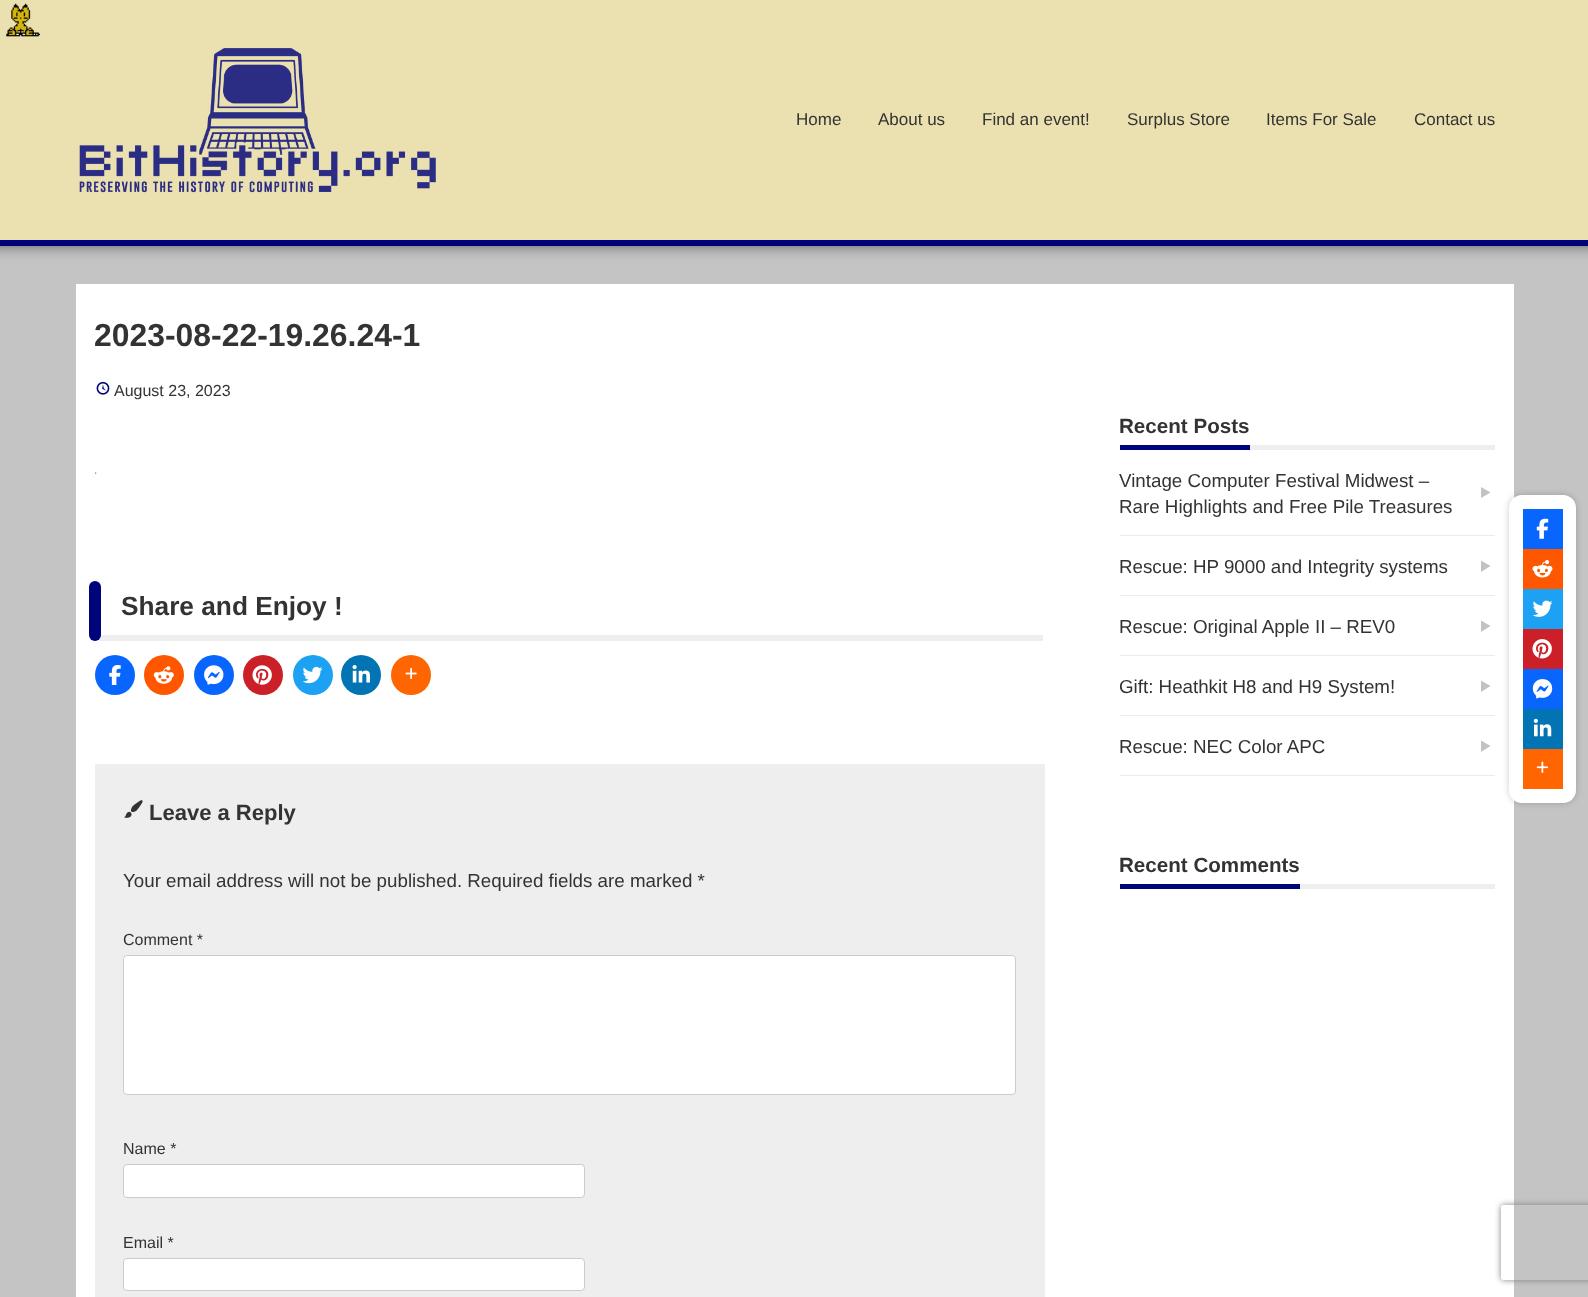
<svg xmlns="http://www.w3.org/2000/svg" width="1588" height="1297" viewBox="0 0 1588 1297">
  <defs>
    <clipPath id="clip1"><path d="M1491 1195H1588V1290H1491ZM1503.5 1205H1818.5C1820 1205 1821 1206 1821 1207.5V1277.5C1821 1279 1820 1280 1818.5 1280H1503.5C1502 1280 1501 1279 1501 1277.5V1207.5C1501 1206 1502 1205 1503.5 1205Z" clip-rule="evenodd"/></clipPath>
  </defs>
  <rect width="100%" height="100%" fill="#c4c4c4"/>
  <path d="M-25 -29h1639v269H-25z" fill="#000" filter="blur(9.5px)"/>
  <path d="M0 0h1588v240H0z" fill="#ebe1b0"/>
  <image x="6" y="3" width="34" height="34" href="img/1.png"/>
  <path d="M0 240h1588v6H0z" fill="#00047a"/>
  <image x="79" y="48" width="357" height="145" href="img/2.png"/>
  <path d="M76 284h1438v1013H76z" fill="#fff"/>
  <image x="96" y="381" width="14" height="14" href="img/3.png"/>
  <image x="95" y="472" width="2" height="2" href="img/4.png"/>
  <path d="M99 635h944v6H99z" fill="#eee"/>
  <rect x="89" y="581" width="12" height="60" rx="6" fill="#00047a"/>
  <circle cx="115" cy="675" r="20" fill="#0866ff"/>
  <image x="109" y="665" width="12" height="20" href="img/5.png"/>
  <circle cx="164" cy="675" r="20" fill="#ff5600"/>
  <image x="153" y="666" width="21" height="18" href="img/6.png"/>
  <circle cx="214" cy="675" r="20" fill="#0866ff"/>
  <image x="204" y="665" width="20" height="20" href="img/7.png"/>
  <circle cx="263" cy="675" r="20" fill="#cb2027"/>
  <image x="252" y="665" width="20" height="20" href="img/8.png"/>
  <circle cx="313" cy="675" r="20" fill="#1da1f2"/>
  <image x="302" y="666" width="21" height="18" href="img/9.png"/>
  <circle cx="361" cy="675" r="20" fill="#0274b3"/>
  <image x="352" y="665" width="18" height="18" href="img/10.png"/>
  <circle cx="411" cy="675" r="20" fill="#ff6500"/>
  <image x="405" y="667" width="12" height="13" href="img/11.png"/>
  <path d="M95 764h950v533H95z" fill="#eee"/>
  <image x="124" y="800" width="19" height="18" href="img/12.png"/>
  <rect x="123.5" y="955.5" width="892" height="139" rx="3.5" fill="#fff" stroke="#ccc"/>
  <rect x="123.5" y="1164.5" width="461" height="33" rx="3.5" fill="#fff" stroke="#ccc"/>
  <rect x="123.5" y="1258.5" width="461" height="32" rx="3.5" fill="#fff" stroke="#ccc"/>
  <path d="M1120 445h130v5H1120z" fill="#00047a"/>
  <path d="M1250 445h245v5H1250z" fill="#eee"/>
  <path d="M1120 535h375v1H1120z" fill="#ebebeb"/>
  <path d="M1481 487L1490.5 492.5L1481 498Z" fill="#c2c2c2"/>
  <path d="M1120 595h375v1H1120z" fill="#ebebeb"/>
  <path d="M1481 560.5L1490.5 566L1481 572Z" fill="#c2c2c2"/>
  <path d="M1120 655h375v1H1120z" fill="#ebebeb"/>
  <path d="M1481 620.5L1490.5 626L1481 632Z" fill="#c2c2c2"/>
  <path d="M1120 715h375v1H1120z" fill="#ebebeb"/>
  <path d="M1481 680.5L1490.5 686L1481 692Z" fill="#c2c2c2"/>
  <path d="M1120 775h375v1H1120z" fill="#ebebeb"/>
  <path d="M1481 740.5L1490.5 746L1481 752Z" fill="#c2c2c2"/>
  <path d="M1120 884h180v5H1120z" fill="#00047a"/>
  <path d="M1300 884h195v5H1300z" fill="#eee"/>
  <rect x="1509" y="495" width="67" height="308" rx="13" fill="#00000033" filter="blur(3px)"/>
  <rect x="1509" y="495" width="67" height="308" rx="13" fill="#fff"/>
  <path d="M1523 509h40v40H1523z" fill="#0866ff"/>
  <image x="1536" y="518" width="13" height="21" href="img/13.png"/>
  <path d="M1523 549h40v40H1523z" fill="#ff5600"/>
  <image x="1532" y="560" width="21" height="18" href="img/14.png"/>
  <path d="M1523 589h40v40H1523z" fill="#1da1f2"/>
  <image x="1532" y="600" width="21" height="17" href="img/15.png"/>
  <path d="M1523 629h40v40H1523z" fill="#cb2027"/>
  <image x="1532" y="639" width="20" height="20" href="img/16.png"/>
  <path d="M1523 669h40v40H1523z" fill="#0866ff"/>
  <image x="1532" y="679" width="21" height="20" href="img/17.png"/>
  <path d="M1523 709h40v40H1523z" fill="#0274b3"/>
  <image x="1533" y="718" width="19" height="19" href="img/18.png"/>
  <path d="M1523 749h40v40H1523z" fill="#ff6500"/>
  <image x="1536" y="761" width="12" height="12" href="img/19.png"/>
  <g clip-path="url(#clip1)">
    <rect x="1501" y="1205" width="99" height="75" rx="2.5" fill="#808080" filter="blur(3px)"/>
  </g>
  <g font-family="Liberation Sans" font-size="17" fill="#333">
    <text x="796" y="125">Home</text>
    <text x="878" y="125">About us</text>
    <text x="982" y="125">Find an event!</text>
    <text x="1127" y="125">Surplus Store</text>
    <text x="1266" y="125">Items For Sale</text>
    <text x="1414" y="125">Contact us</text>
  </g>
  <text x="94" y="346" font-family="Liberation Sans" font-size="31.9" font-weight="bold" fill="#333">2023-08-22-19.26.24-1</text>
  <text x="114" y="396" font-family="Liberation Sans" font-size="16" fill="#333">August 23, 2023</text>
  <text x="121" y="615" font-family="Liberation Sans" font-size="26.25" font-weight="bold" fill="#333">Share and Enjoy !</text>
  <text x="149" y="820" font-family="Liberation Sans" font-size="22" font-weight="bold" fill="#333">Leave a Reply</text>
  <text x="123" y="887" font-family="Liberation Sans" font-size="18.75" fill="#333">Your email address will not be published. Required fields are marked *</text>
  <g font-family="Liberation Sans" font-size="16" fill="#333">
    <text x="123" y="945">Comment *</text>
    <text x="123" y="1154">Name *</text>
    <text x="123" y="1248">Email *</text>
  </g>
  <text x="1119" y="433" font-family="Liberation Sans" font-size="20.6" font-weight="bold" fill="#333">Recent Posts</text>
  <g font-family="Liberation Sans" font-size="18.75" fill="#333">
    <text x="1119" y="487">Vintage Computer Festival Midwest –</text>
    <text x="1119" y="513">Rare Highlights and Free Pile Treasures</text>
    <text x="1119" y="573">Rescue: HP 9000 and Integrity systems</text>
    <text x="1119" y="633">Rescue: Original Apple II – REV0</text>
    <text x="1119" y="693">Gift: Heathkit H8 and H9 System!</text>
    <text x="1119" y="753">Rescue: NEC Color APC</text>
  </g>
  <text x="1119" y="872" font-family="Liberation Sans" font-size="20.6" font-weight="bold" fill="#333">Recent Comments</text>
</svg>
